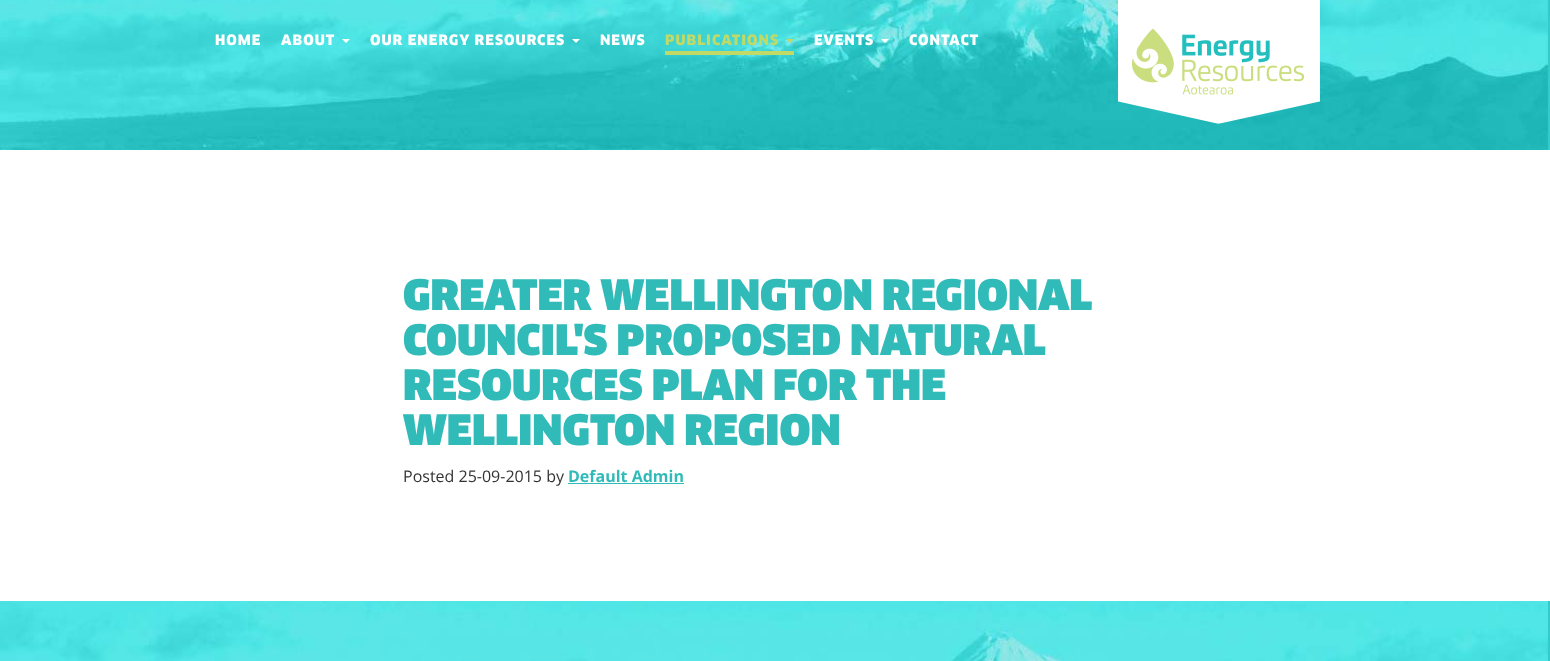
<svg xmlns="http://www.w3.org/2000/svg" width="1550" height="661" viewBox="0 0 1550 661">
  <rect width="100%" height="100%" fill="#fff"/>
  <image x="0" y="0" width="1550" height="150" href="img/1.png"/>
  <path d="M342 39H350L346 43Z" fill="#fff"/>
  <path d="M572 39H580L576 43Z" fill="#fff"/>
  <path d="M786 39H794L790 43Z" fill="#c0d967"/>
  <path d="M665 51h129v4H665z" fill="#c0d967"/>
  <path d="M881 39H889L885 43Z" fill="#fff"/>
  <image x="1118" y="0" width="202" height="124" href="img/2.png"/>
  <path d="M568 483h116v1H568z" fill="#30bbb9"/>
  <image x="0" y="601" width="1550" height="60" href="img/3.png"/>
  <g font-family="'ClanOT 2'" font-size="14" font-weight="900" letter-spacing="1" fill="#fff">
    <text x="215" y="45">HOME</text>
    <text x="281" y="45">ABOUT</text>
    <text x="370" y="45">OUR ENERGY RESOURCES</text>
    <text x="600" y="45">NEWS</text>
  </g>
  <text x="665" y="45" font-family="'ClanOT 2'" font-size="14" font-weight="900" letter-spacing="1" fill="#c0d967">PUBLICATIONS</text>
  <g font-family="'ClanOT 2'" font-size="14" font-weight="900" letter-spacing="1" fill="#fff">
    <text x="814" y="45">EVENTS</text>
    <text x="909" y="45">CONTACT</text>
  </g>
  <g font-family="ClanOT" font-size="41" font-weight="900" fill="#30bbb9">
    <text x="403" y="310">GREATER WELLINGTON REGIONAL</text>
    <text x="403" y="355">COUNCIL'S PROPOSED NATURAL</text>
    <text x="403" y="400">RESOURCES PLAN FOR THE</text>
    <text x="403" y="445">WELLINGTON REGION</text>
  </g>
  <text x="403" y="482" font-family="Open Sans" font-size="16" fill="#333">Posted 25-09-2015 by</text>
  <text x="568" y="482" font-family="Open Sans" font-size="16" font-weight="bold" fill="#30bbb9">Default Admin</text>
</svg>
